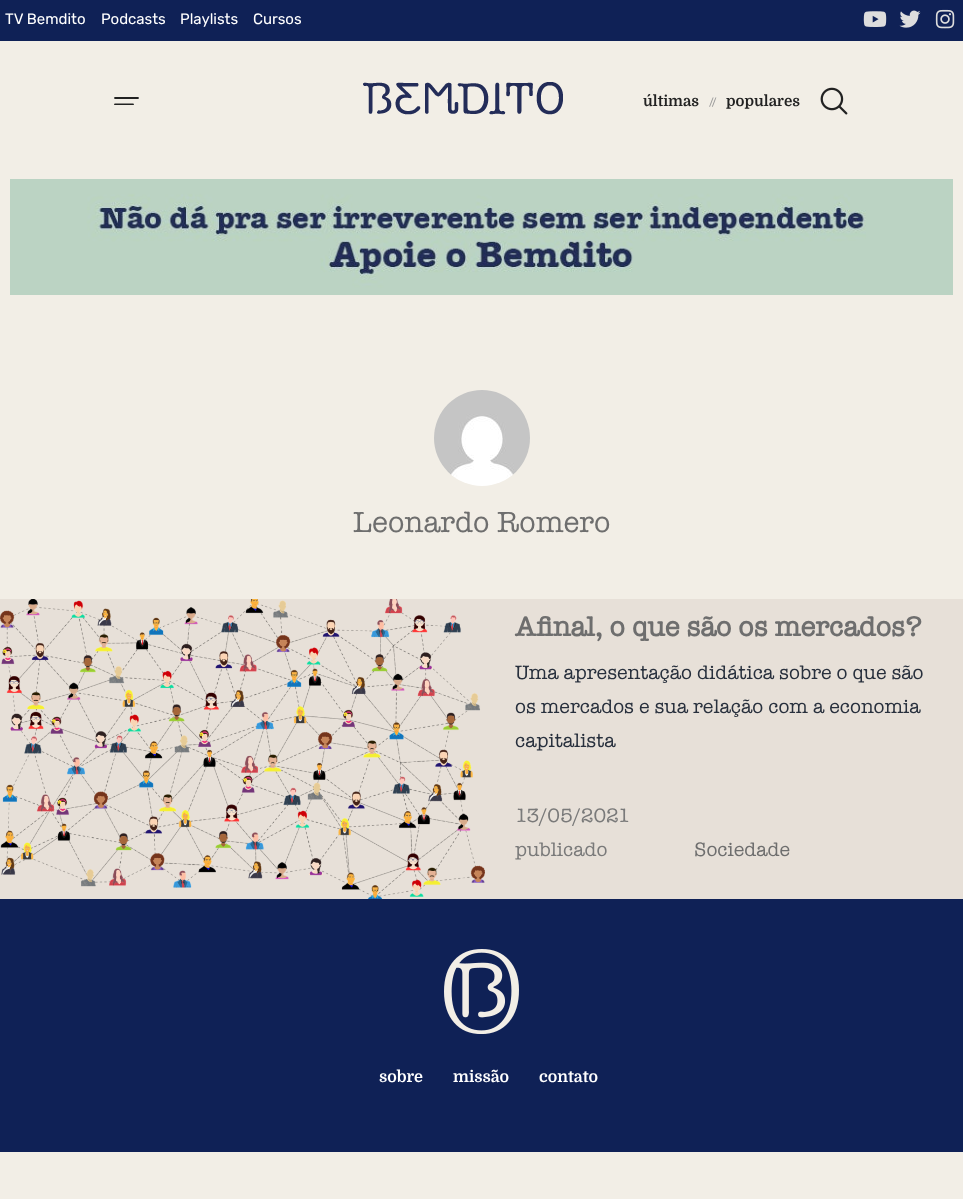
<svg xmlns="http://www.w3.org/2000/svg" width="963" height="1199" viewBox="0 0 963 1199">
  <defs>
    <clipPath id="clip1"><path d="M114 97h25v8H114z"/></clipPath>
  </defs>
  <rect width="100%" height="100%" fill="#f2eee6"/>
  <path d="M0 0h963v41H0z" fill="#0f2156"/>
  <image x="863" y="11" width="24" height="16" href="img/1.png"/>
  <image x="899" y="10" width="22" height="18" href="img/2.png"/>
  <image x="935" y="9" width="20" height="20" href="img/3.png"/>
  <path d="M115 98H138" fill="none" stroke="#222" stroke-width="1.8" stroke-linecap="round"/>
  <g clip-path="url(#clip1)">
    <path d="M115 104.5H133" fill="none" stroke="#222" stroke-width="1.8" stroke-linecap="round"/>
  </g>
  <image x="363" y="82" width="200" height="33" href="img/4.png"/>
  <image x="820" y="87" width="28" height="28" href="img/5.png"/>
  <image x="10" y="179" width="943" height="116" href="img/6.png"/>
  <image x="434" y="390" width="96" height="96" href="img/7.png"/>
  <path d="M0 599h963v300H0z" fill="#e7e0d8"/>
  <image x="0" y="599" width="485" height="300" href="img/8.png"/>
  <path d="M0 899h963v253H0z" fill="#0f2156"/>
  <image x="444" y="949" width="75" height="85" href="img/9.png"/>
  <g font-family="Rubik" font-size="15" fill="#fff">
    <text x="5" y="24">TV Bemdito</text>
    <text x="101" y="24">Podcasts</text>
    <text x="180" y="24">Playlists</text>
    <text x="253" y="24">Cursos</text>
  </g>
  <text x="643" y="106" font-family="Domine" font-size="15" font-weight="bold" fill="#222">últimas</text>
  <text x="709" y="106" font-family="Roboto" font-size="12" letter-spacing="-1" fill="#999">//</text>
  <text x="726" y="106" font-family="Domine" font-size="15" font-weight="bold" fill="#222">populares</text>
  <text x="353" y="532" font-family="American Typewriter" font-size="30" fill="#6e6e6e">Leonardo Romero</text>
  <text x="515" y="636" font-family="American Typewriter" font-size="28" font-weight="bold" fill="#6e6e6e">Afinal, o que são os mercados?</text>
  <g font-family="American Typewriter" font-size="20" fill="#28303d">
    <text x="515" y="679">Uma apresentação didática sobre o que são</text>
    <text x="515" y="713">os mercados e sua relação com a economia</text>
    <text x="515" y="747">capitalista</text>
  </g>
  <g font-family="American Typewriter" font-size="20" fill="#7a7a7a">
    <text x="515" y="822">13/05/2021</text>
    <text x="515" y="856">publicado</text>
  </g>
  <text x="694" y="856" font-family="American Typewriter" font-size="20" fill="#6e6e6e">Sociedade</text>
  <g font-family="Domine" font-size="16" font-weight="bold" fill="#fff">
    <text x="379" y="1082">sobre</text>
    <text x="453" y="1082">missão</text>
    <text x="539" y="1082">contato</text>
  </g>
</svg>
